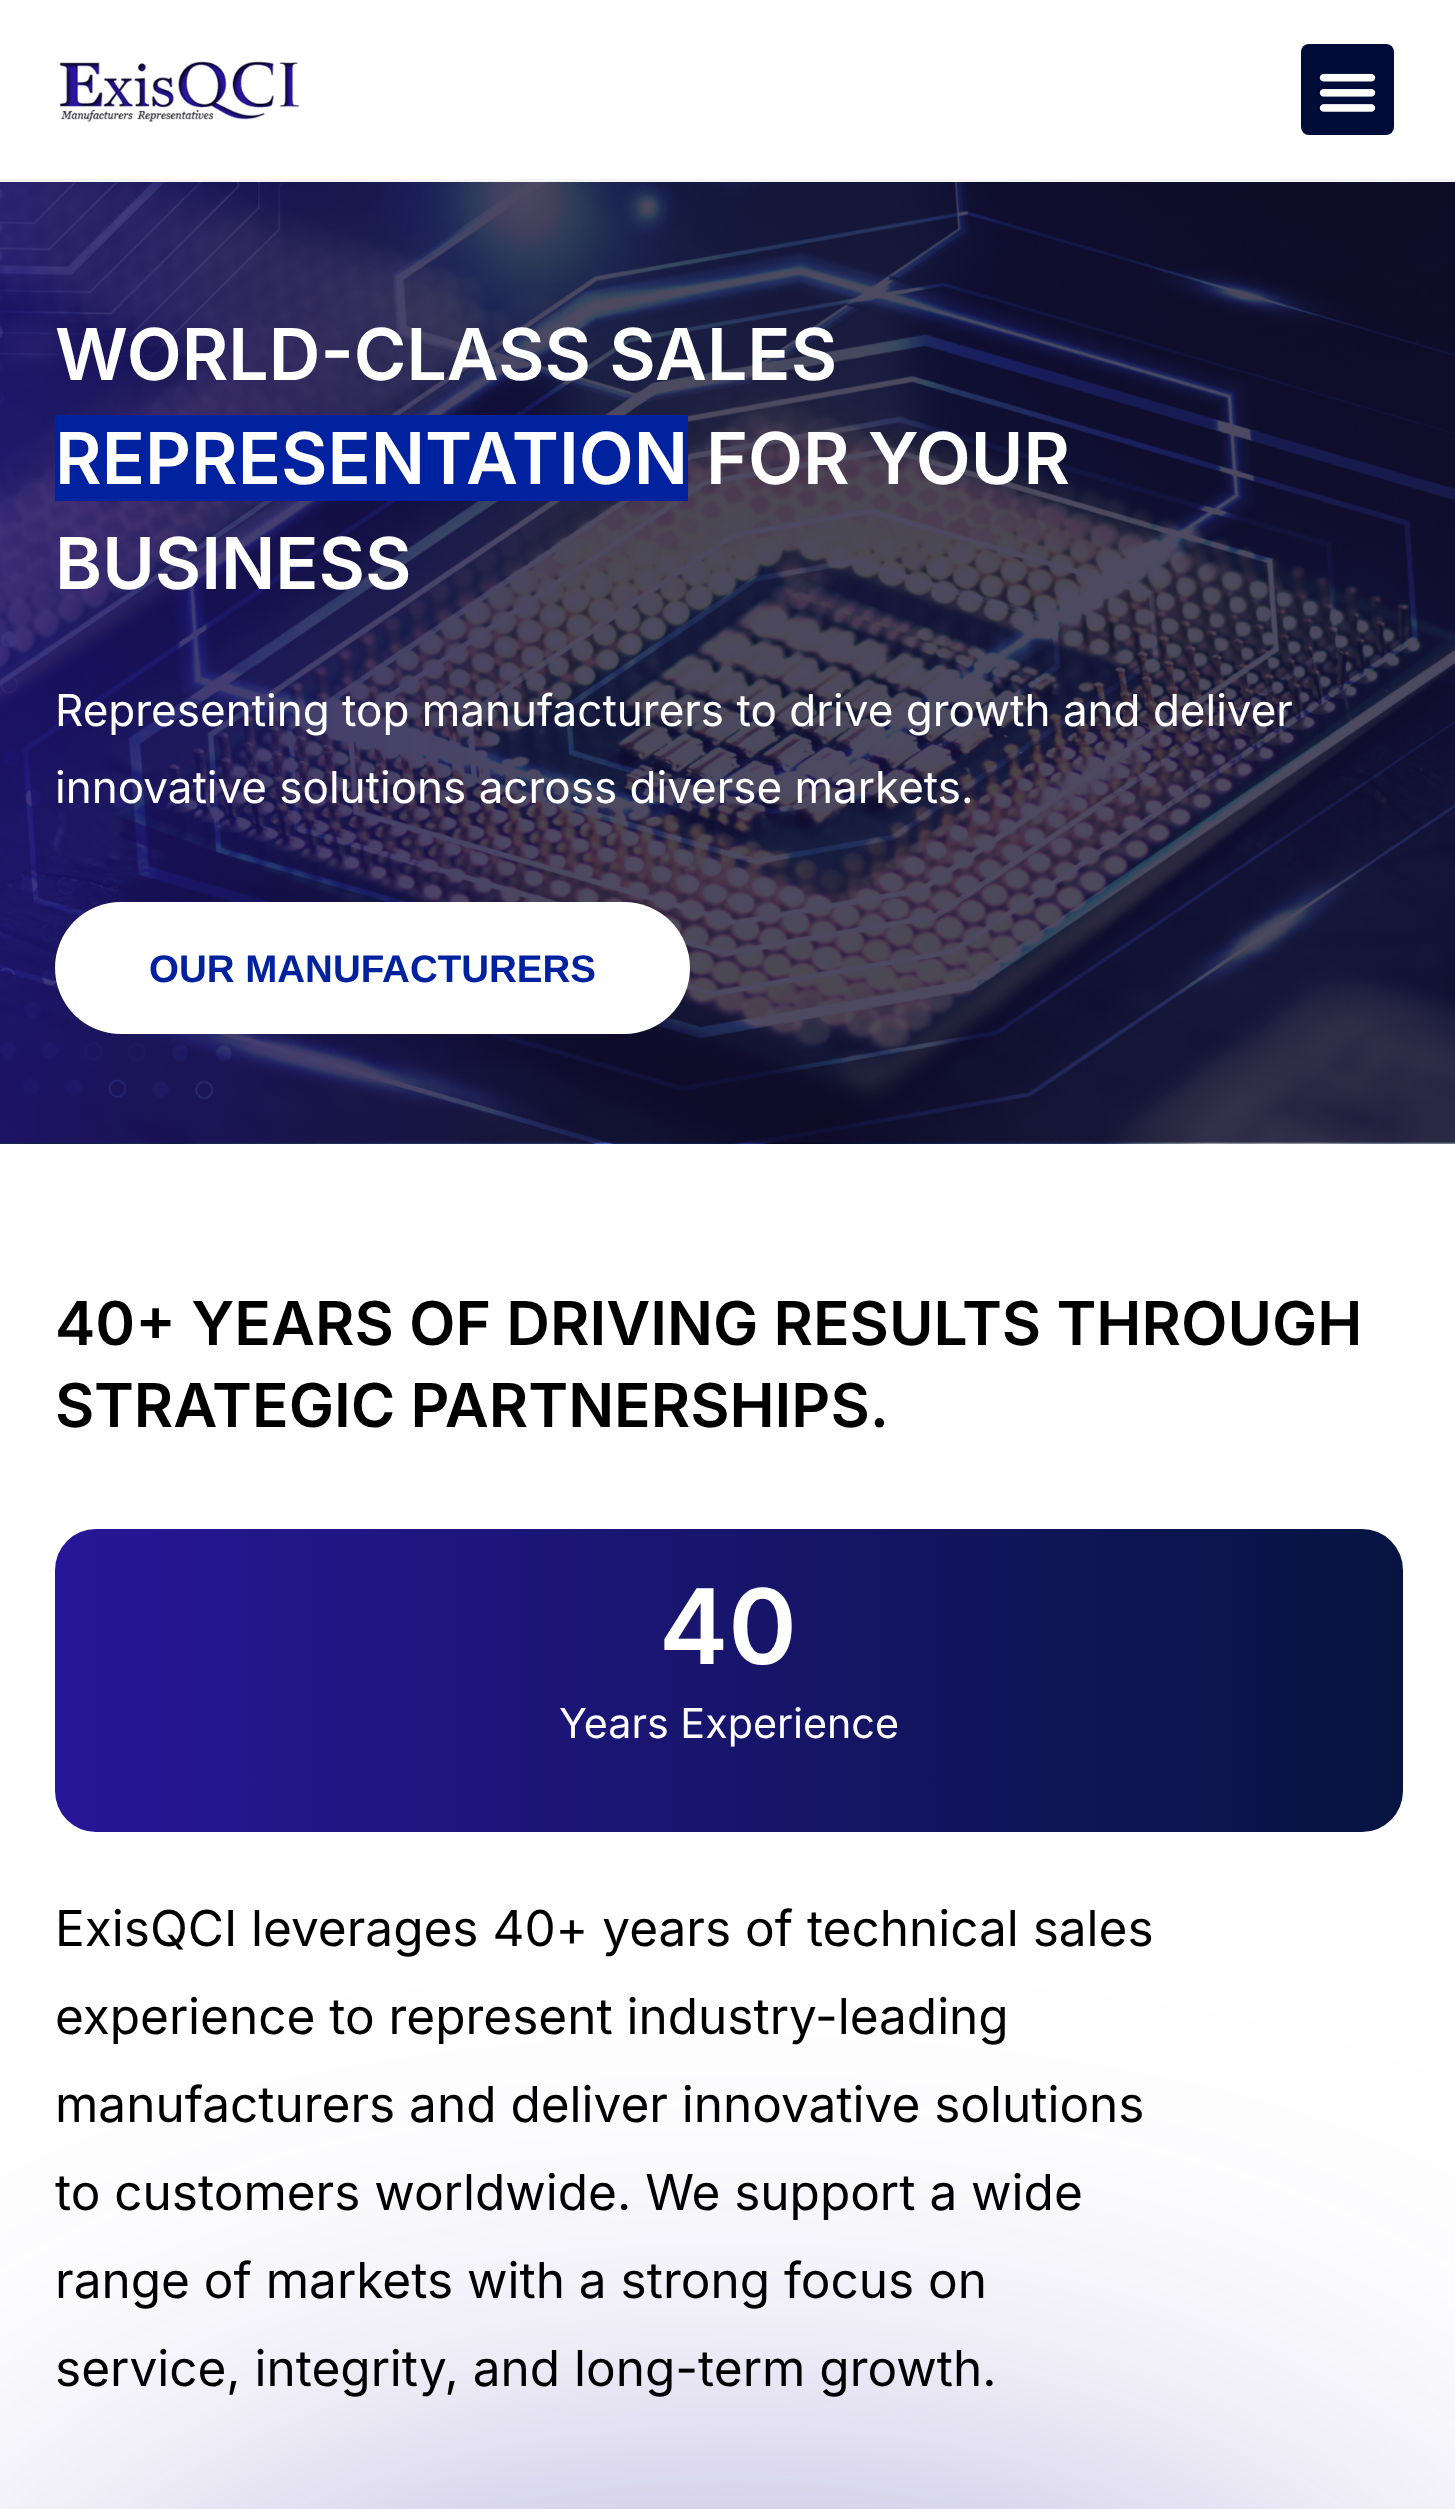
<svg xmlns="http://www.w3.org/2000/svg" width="1455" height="2509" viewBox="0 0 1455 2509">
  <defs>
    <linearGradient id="g1" gradientUnits="userSpaceOnUse" x1="55" y1="1680" x2="1403" y2="1680"><stop offset="0" stop-color="#281697"/><stop offset="1" stop-color="#071441"/></linearGradient>
  </defs>
  <rect width="100%" height="100%" fill="#fff"/>
  <image x="59" y="61" width="241" height="61" href="img/1.png"/>
  <rect x="1301" y="44" width="93" height="91" rx="8" fill="#000c38"/>
  <image x="1319" y="73" width="57" height="39" href="img/2.png"/>
  <path d="M0 179h1455v3H0z" fill="#f5f5f5"/>
  <image x="0" y="182" width="1455" height="962" href="img/3.png"/>
  <path d="M55 415h633v86H55z" fill="#00229e"/>
  <rect x="55" y="902" width="635" height="132" rx="66" fill="#fff"/>
  <rect x="55" y="1529" width="1348" height="303" rx="41" fill="url(#g1)"/>
  <rect x="55" y="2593" width="1348" height="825" rx="412.5" fill="#27169785" filter="blur(275px)"/>
  <g font-family="Inter" font-size="71.5" font-weight="600" fill="#fff">
    <text x="55" y="380">WORLD-CLASS SALES</text>
    <text x="55" y="484">REPRESENTATION FOR YOUR</text>
    <text x="55" y="589">BUSINESS</text>
  </g>
  <g font-family="Inter" font-size="44" fill="#fff">
    <text x="55" y="726">Representing top manufacturers to drive growth and deliver</text>
    <text x="55" y="803">innovative solutions across diverse markets.</text>
  </g>
  <text x="149" y="982" font-family="Liberation Sans" font-size="38.5" font-weight="bold" fill="#00229e">OUR MANUFACTURERS</text>
  <g font-family="Inter" font-size="60.5" font-weight="600" fill="#000">
    <text x="55" y="1345">40+ YEARS OF DRIVING RESULTS THROUGH</text>
    <text x="55" y="1427">STRATEGIC PARTNERSHIPS.</text>
  </g>
  <text x="659" y="1664" font-family="Inter" font-size="104" font-weight="600" fill="#fff">40</text>
  <text x="559" y="1738" font-family="Inter" font-size="41.25" fill="#fff">Years Experience</text>
  <g font-family="Inter" font-size="49.5" fill="#000">
    <text x="55" y="1946">ExisQCI leverages 40+ years of technical sales</text>
    <text x="55" y="2034">experience to represent industry-leading</text>
    <text x="55" y="2122">manufacturers and deliver innovative solutions</text>
    <text x="55" y="2210">to customers worldwide. We support a wide</text>
    <text x="55" y="2298">range of markets with a strong focus on</text>
    <text x="55" y="2386">service, integrity, and long-term growth.</text>
  </g>
</svg>
